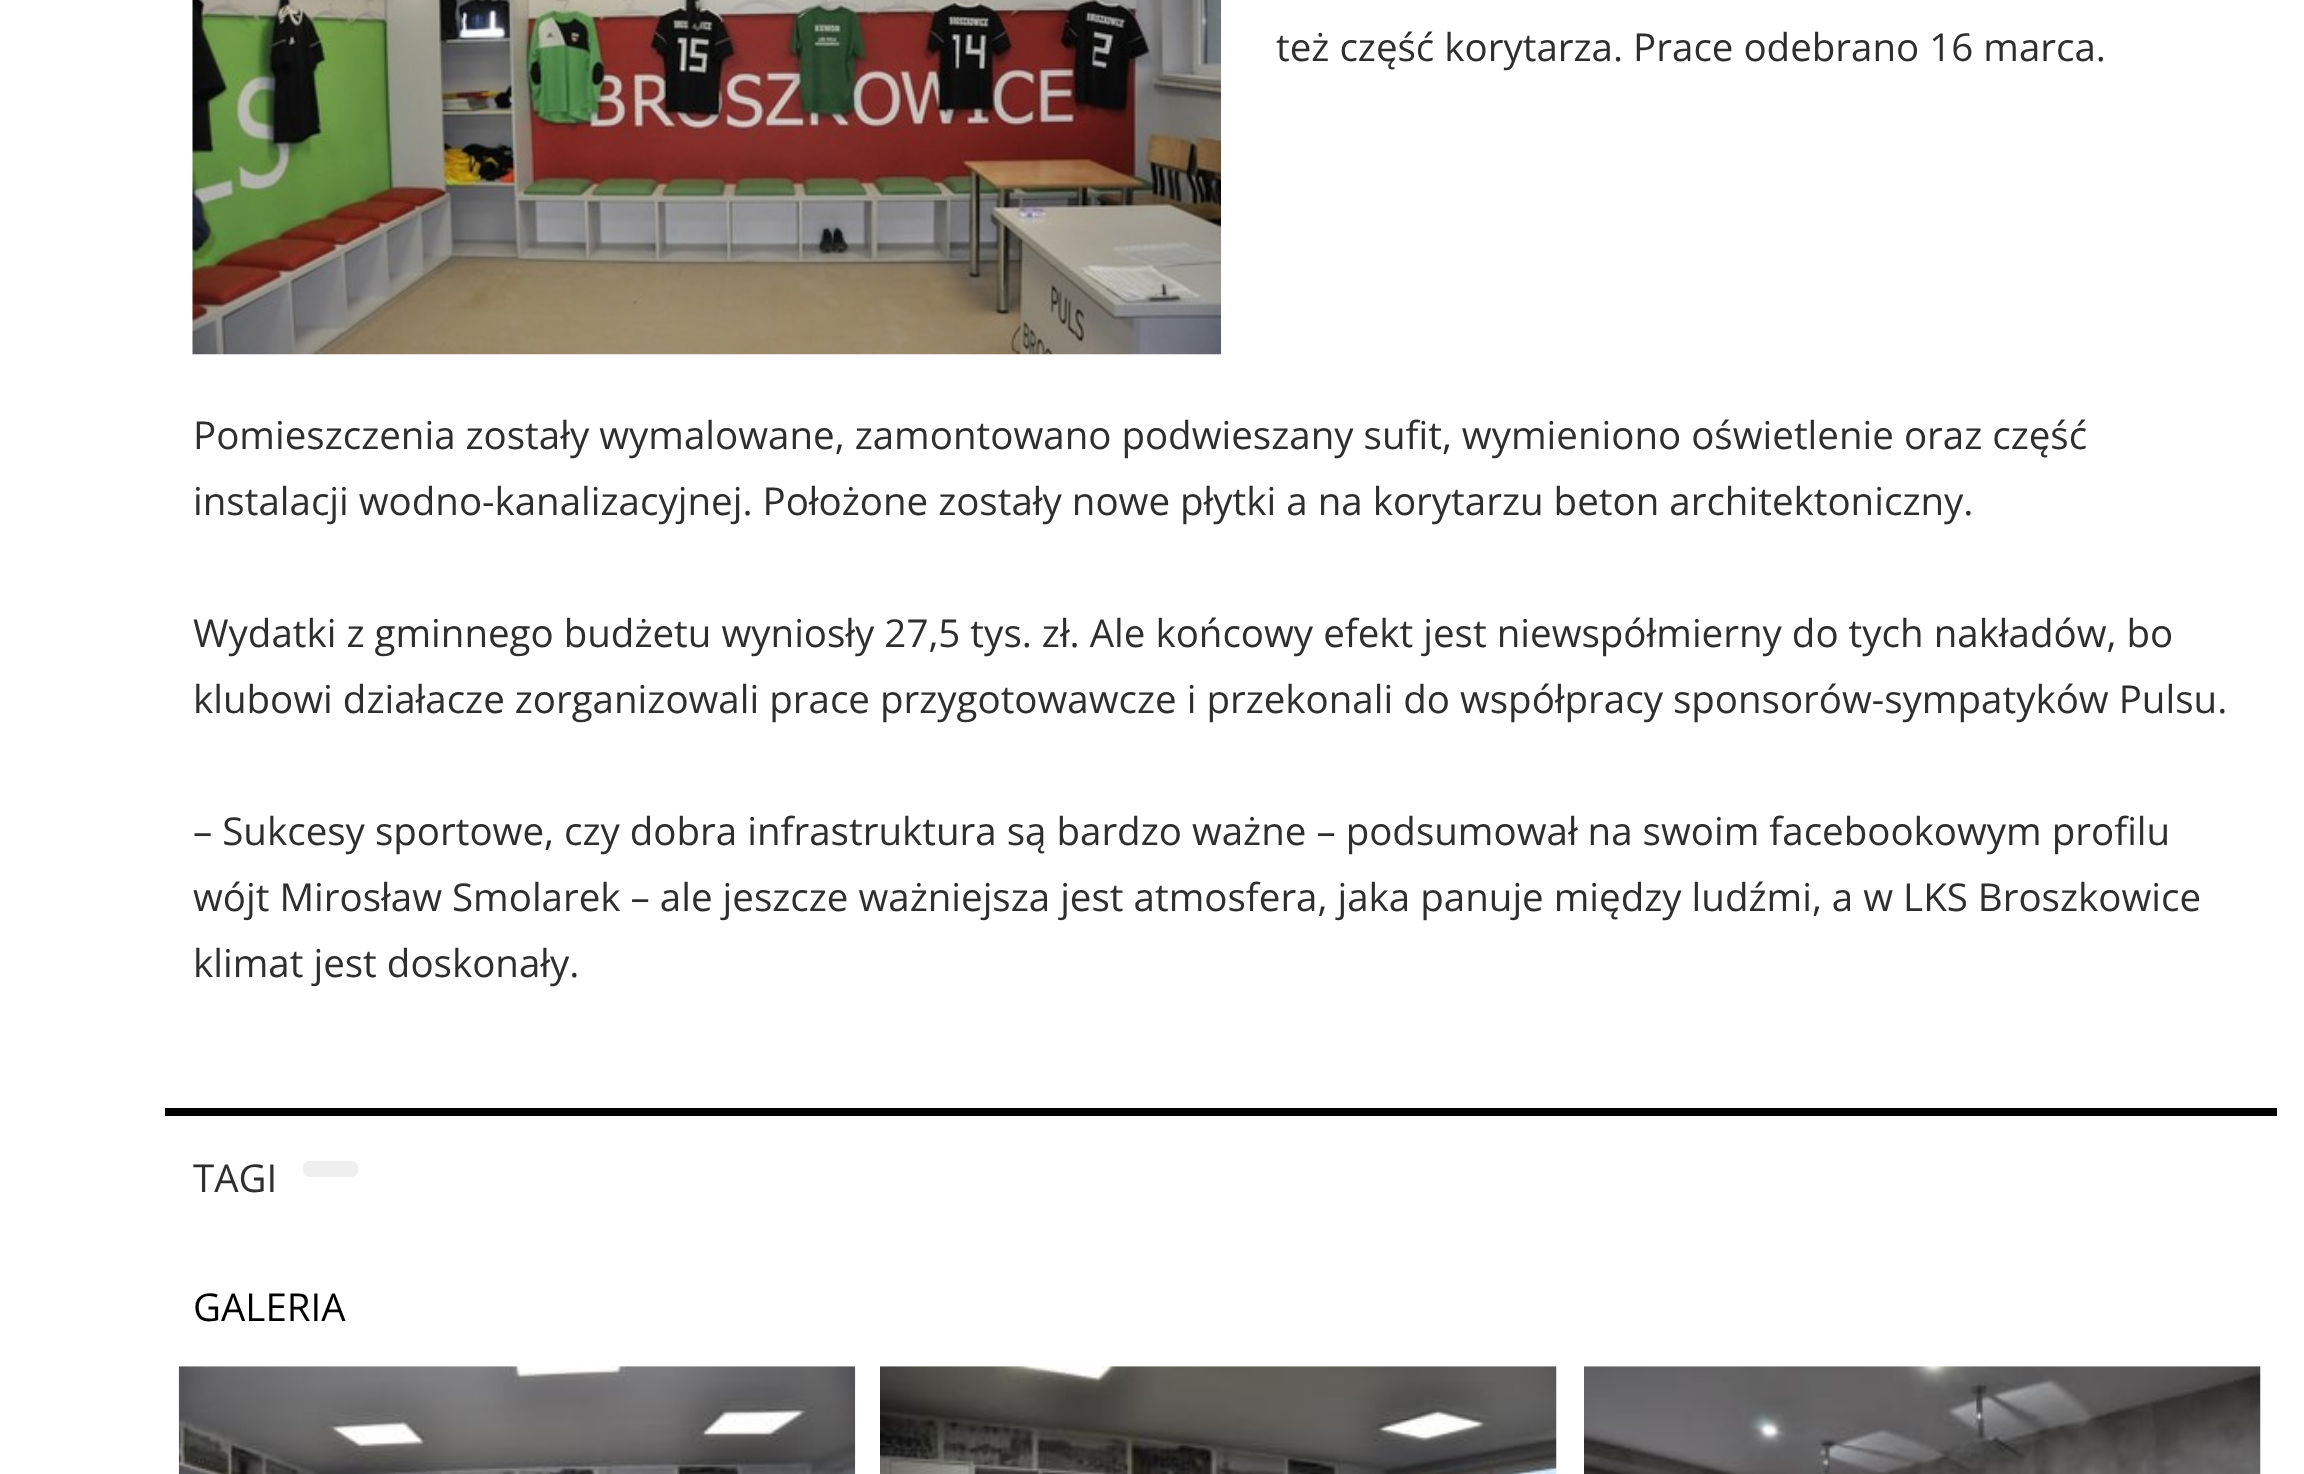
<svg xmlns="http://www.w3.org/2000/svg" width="2304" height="1474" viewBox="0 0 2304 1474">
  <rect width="100%" height="100%" fill="#fff"/>
  <image x="192" y="0" width="1029" height="355" href="img/1.png"/>
  <path d="M165 1108h2112v8H165z" fill="#000"/>
  <rect x="303" y="1161" width="55" height="16" rx="6" fill="#efefef"/>
  <image x="178" y="1366" width="678" height="108" href="img/2.png"/>
  <image x="880" y="1366" width="677" height="108" href="img/3.png"/>
  <image x="1584" y="1366" width="677" height="108" href="img/4.png"/>
  <g font-family="Open Sans" font-size="38.5" fill="#2e2e2e">
    <text x="1276" y="61">też część korytarza. Prace odebrano 16 marca.</text>
    <text x="193" y="449">Pomieszczenia zostały wymalowane, zamontowano podwieszany sufit, wymieniono oświetlenie oraz część</text>
    <text x="193" y="515">instalacji wodno-kanalizacyjnej. Położone zostały nowe płytki a na korytarzu beton architektoniczny.</text>
    <text x="193" y="647">Wydatki z gminnego budżetu wyniosły 27,5 tys. zł. Ale końcowy efekt jest niewspółmierny do tych nakładów, bo</text>
    <text x="193" y="713">klubowi działacze zorganizowali prace przygotowawcze i przekonali do współpracy sponsorów-sympatyków Pulsu.</text>
    <text x="193" y="845">– Sukcesy sportowe, czy dobra infrastruktura są bardzo ważne – podsumował na swoim facebookowym profilu</text>
    <text x="193" y="911">wójt Mirosław Smolarek – ale jeszcze ważniejsza jest atmosfera, jaka panuje między ludźmi, a w LKS Broszkowice</text>
    <text x="193" y="977">klimat jest doskonały.</text>
    <text x="193" y="1192">TAGI</text>
  </g>
  <text x="193" y="1321" font-family="Open Sans" font-size="38.5" fill="#000">GALERIA</text>
</svg>
